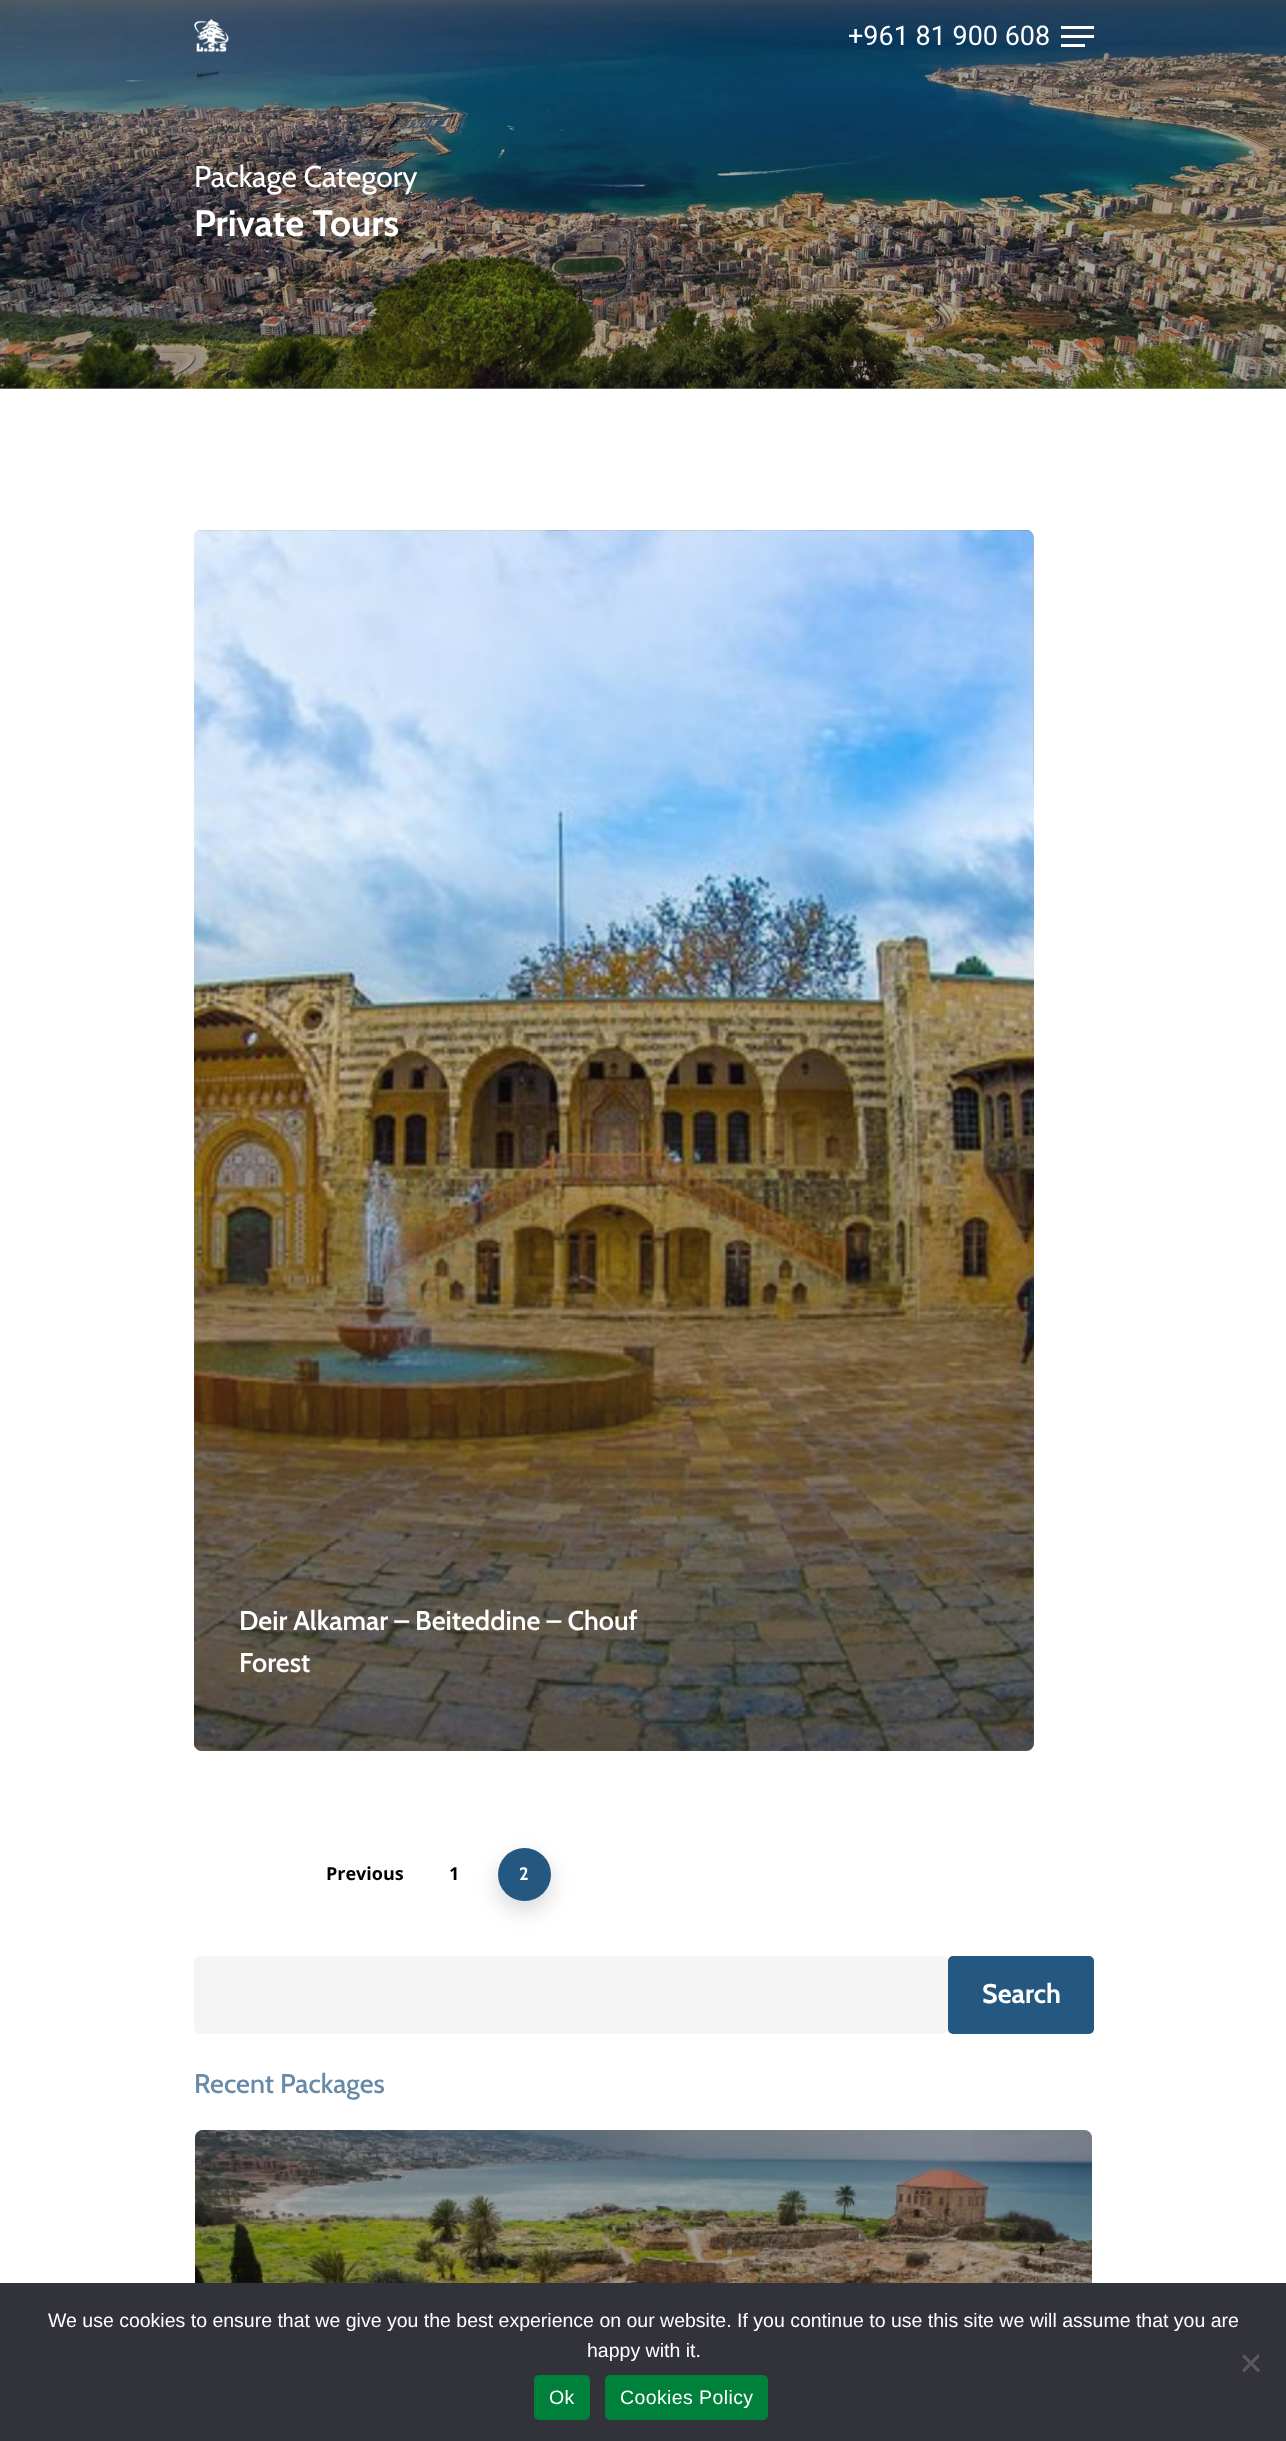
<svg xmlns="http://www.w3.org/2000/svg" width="1286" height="2441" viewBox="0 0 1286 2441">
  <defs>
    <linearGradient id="g1" gradientUnits="userSpaceOnUse" x1="616" y1="836" x2="616" y2="1757"><stop offset="0" stop-color="#232323" stop-opacity="0"/><stop offset="1" stop-color="#232323" stop-opacity="0.65"/></linearGradient>
  </defs>
  <rect width="100%" height="100%" fill="#fff"/>
  <path d="M0 388h1286v1H0z" fill="#afafaf"/>
  <image x="0" y="0" width="1286" height="389" href="img/2.png"/>
  <image x="194" y="19" width="36" height="34" href="img/1.png"/>
  <path d="M1061 26h33v3H1061z" fill="#fff"/>
  <path d="M1061 44h24v3H1061z" fill="#fff"/>
  <path d="M1061 35h33v3H1061z" fill="#fff"/>
  <rect x="194" y="530" width="840" height="1221" rx="8" fill="#b3b3b3"/>
  <image x="194" y="530" width="840" height="1221" href="img/3.png"/>
  <path d="M194 836H1034V1743C1034 1747.5 1030.5 1751 1026 1751H202C197.5 1751 194 1747.5 194 1743Z" fill="url(#g1)"/>
  <rect x="498" y="1857" width="53" height="53" rx="26.5" fill="#00000029" filter="blur(11px)"/>
  <circle cx="524.5" cy="1874.5" r="26.5" fill="#245881"/>
  <rect x="194" y="1956" width="754" height="78" rx="6" fill="#f5f5f5"/>
  <rect x="948" y="1956" width="146" height="78" rx="5" fill="#245881"/>
  <image x="195" y="2130" width="897" height="153" href="img/4.png"/>
  <rect x="195" y="2130" width="897" height="288" rx="8" fill="#00000059"/>
  <path d="M0 2283h1286v158H0z" fill="#32323a"/>
  <path d="M1258 2354L1260 2356.5L1244 2372.5L1242 2370Z" fill="#59595d"/>
  <path d="M1242 2356.5L1244 2354L1260 2370L1258 2372.5Z" fill="#59595d"/>
  <rect x="534" y="2375" width="56" height="45" rx="5" fill="#00813b"/>
  <rect x="605" y="2375" width="163" height="45" rx="5" fill="#00813b"/>
  <text x="848" y="45" font-family="Roboto" font-size="27" fill="#fff">+961 81 900 608</text>
  <text x="194" y="187" font-family="Cabin" font-size="30" fill="#fff">Package Category</text>
  <text x="194" y="236" font-family="Cabin" font-size="36.75" font-weight="bold" fill="#fff">Private Tours</text>
  <g font-family="Cabin" font-size="27" font-weight="600" fill="#fff">
    <text x="239" y="1630">Deir Alkamar – Beiteddine – Chouf</text>
    <text x="239" y="1672">Forest</text>
  </g>
  <g font-family="Open Sans" font-size="18" font-weight="bold" fill="#000">
    <text x="326" y="1880">Previous</text>
    <text x="449" y="1880">1</text>
  </g>
  <text x="519" y="1880" font-family="Cabin" font-size="18" font-weight="bold" fill="#fff">2</text>
  <text x="982" y="2003" font-family="Cabin" font-size="27" font-weight="bold" fill="#fff">Search</text>
  <text x="194" y="2093" font-family="Cabin" font-size="27" font-weight="500" fill="#668aa7">Recent Packages</text>
  <g font-family="Liberation Sans" font-size="19.5" fill="#fff">
    <text x="48" y="2327">We use cookies to ensure that we give you the best experience on our website. If you continue to use this site we will assume that you are</text>
    <text x="587" y="2357">happy with it.</text>
  </g>
  <g font-family="Liberation Sans" font-size="19.5" letter-spacing="0.4" fill="#fff">
    <text x="549" y="2404">Ok</text>
    <text x="620" y="2404">Cookies Policy</text>
  </g>
</svg>
